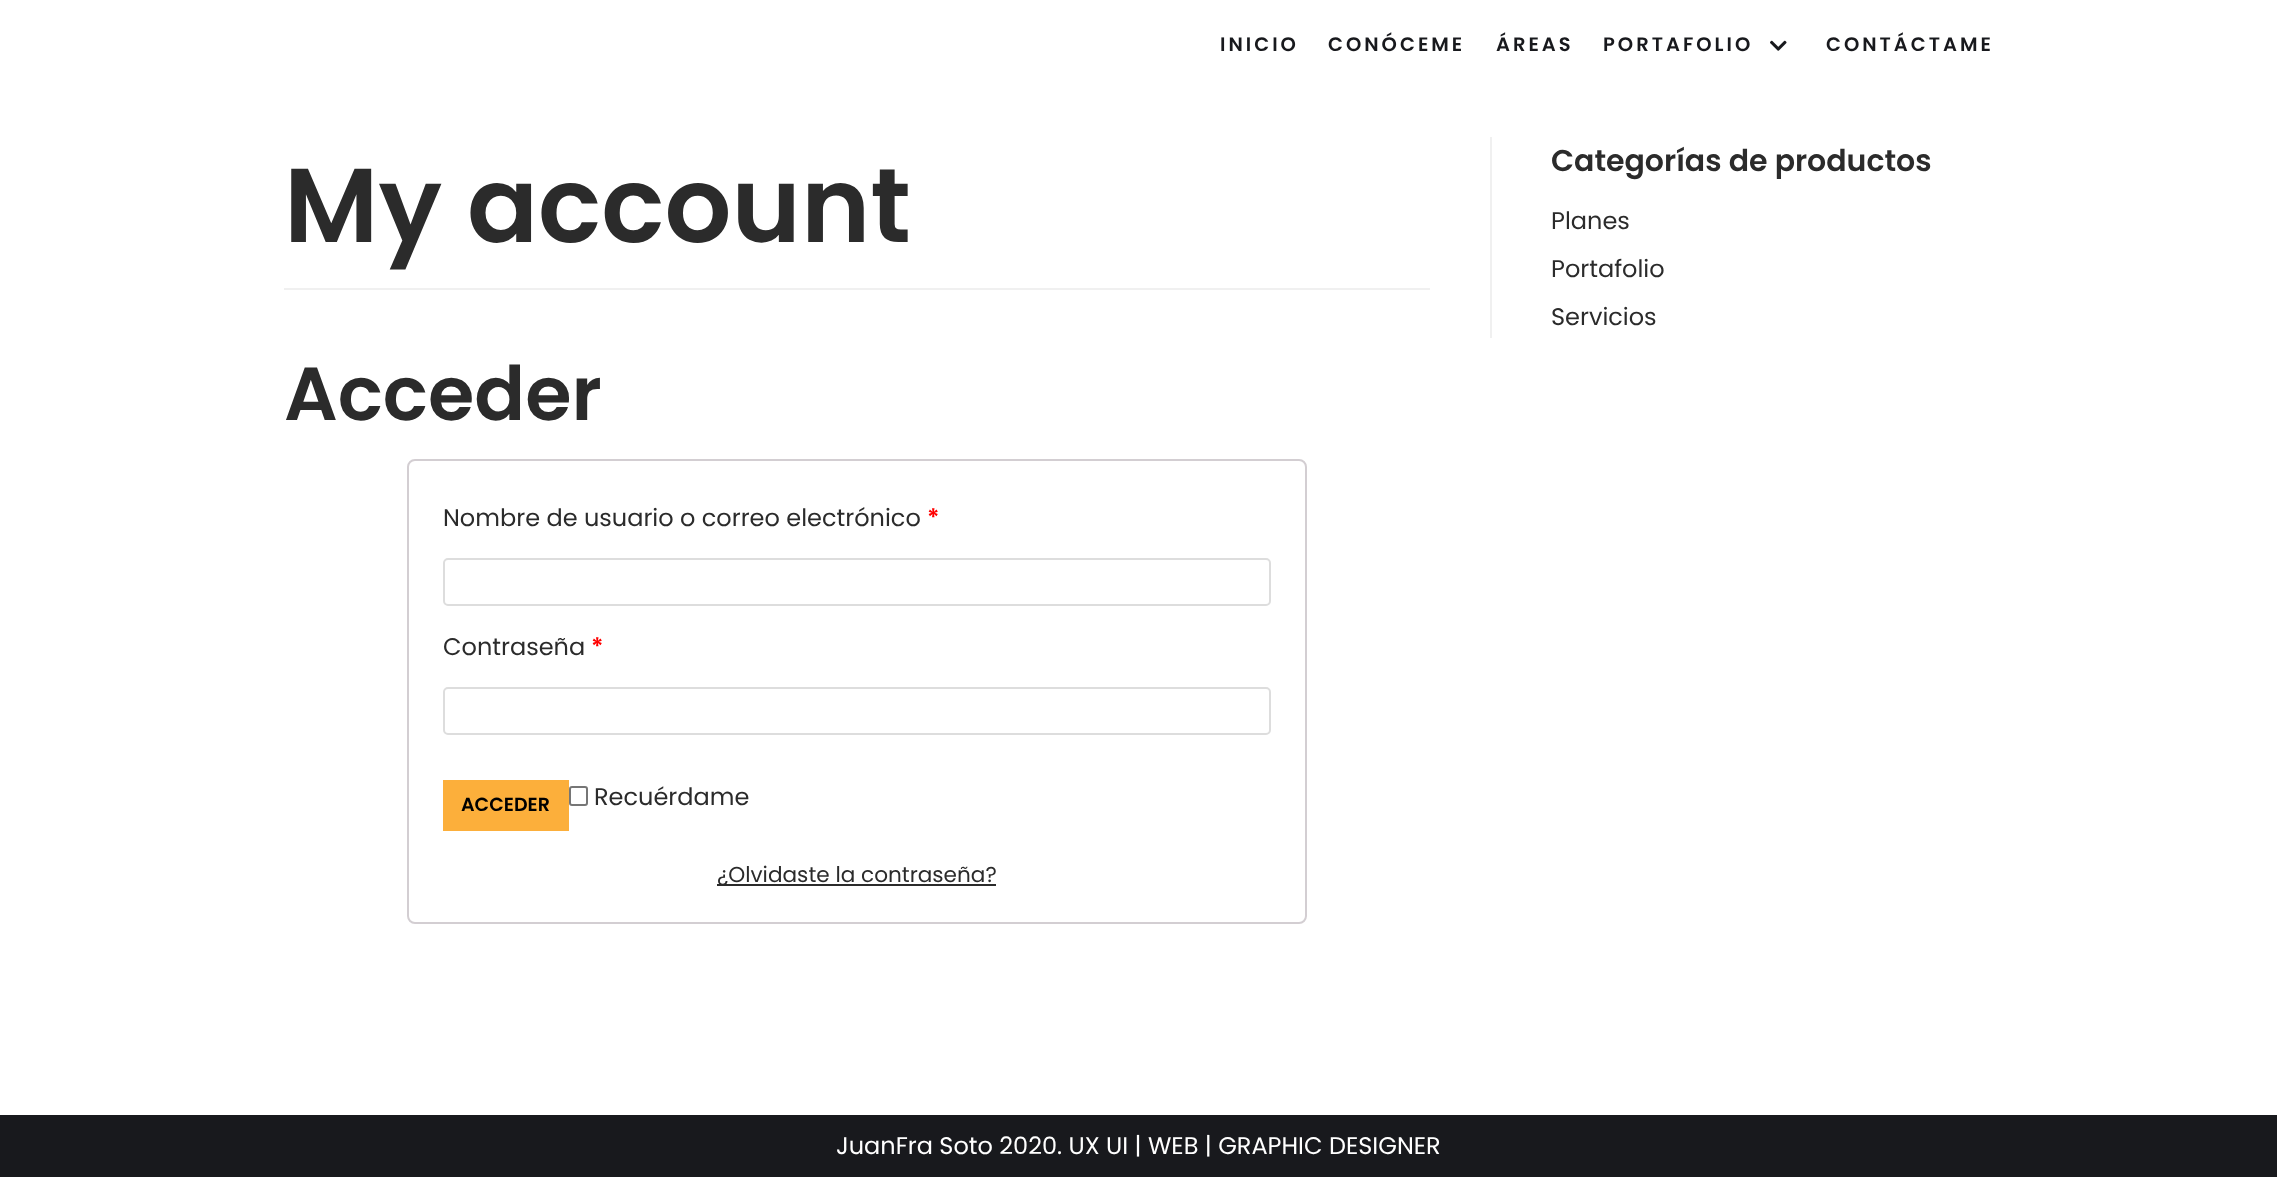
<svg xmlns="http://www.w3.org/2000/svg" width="2277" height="1177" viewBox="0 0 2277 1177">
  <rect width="100%" height="100%" fill="#fff"/>
  <image x="1770" y="40" width="17" height="11" href="img/1.png"/>
  <path d="M284 288h1146v2H284z" fill="#f0f0f0"/>
  <rect x="408" y="460" width="898" height="463" rx="7" fill="none" stroke="#d3ced2" stroke-width="2"/>
  <rect x="444" y="559" width="826" height="46" rx="4" fill="none" stroke="#ddd" stroke-width="2"/>
  <rect x="444" y="688" width="826" height="46" rx="4" fill="none" stroke="#ddd" stroke-width="2"/>
  <path d="M443 780h126v51H443z" fill="#fcaf3b"/>
  <rect x="570" y="787" width="17" height="18" rx="2" fill="none" stroke="#767676" stroke-width="2"/>
  <path d="M717 884h279v2H717z" fill="#2b2b2b"/>
  <path d="M1490 137h2v201H1490z" fill="#f0f0f0"/>
  <path d="M0 1115h2277v62H0z" fill="#18191d"/>
  <g font-family="Poppins" font-size="19.5" font-weight="600" letter-spacing="3" fill="#18191d">
    <text x="1220" y="51">INICIO</text>
    <text x="1328" y="51">CONÓCEME</text>
    <text x="1496" y="51">ÁREAS</text>
    <text x="1603" y="51">PORTAFOLIO</text>
    <text x="1826" y="51">CONTÁCTAME</text>
  </g>
  <text x="284" y="242" font-family="Poppins" font-size="105" font-weight="600" fill="#2b2b2b">My account</text>
  <text x="284" y="420" font-family="Poppins" font-size="75" font-weight="600" fill="#2b2b2b">Acceder</text>
  <text x="443" y="526" font-family="Poppins" font-size="24" fill="#2b2b2b">Nombre de usuario o correo electrónico</text>
  <text x="927" y="526" font-family="Poppins" font-size="24" font-weight="600" fill="#f00">*</text>
  <text x="443" y="655" font-family="Poppins" font-size="24" fill="#2b2b2b">Contraseña</text>
  <text x="591" y="655" font-family="Poppins" font-size="24" font-weight="600" fill="#f00">*</text>
  <text x="461" y="811" font-family="Poppins" font-size="19" font-weight="600" fill="#000">ACCEDER</text>
  <text x="594" y="805" font-family="Poppins" font-size="24" fill="#2b2b2b">Recuérdame</text>
  <text x="717" y="882" font-family="Poppins" font-size="21.6" fill="#2b2b2b">¿Olvidaste la contraseña?</text>
  <text x="1551" y="171" font-family="Poppins" font-size="30" font-weight="600" fill="#2b2b2b">Categorías de productos</text>
  <g font-family="Poppins" font-size="24" fill="#2b2b2b">
    <text x="1551" y="229">Planes</text>
    <text x="1551" y="277">Portafolio</text>
    <text x="1551" y="325">Servicios</text>
  </g>
  <text x="836" y="1154" font-family="Poppins" font-size="24" fill="#fff">JuanFra Soto 2020. UX UI | WEB | GRAPHIC DESIGNER</text>
</svg>
